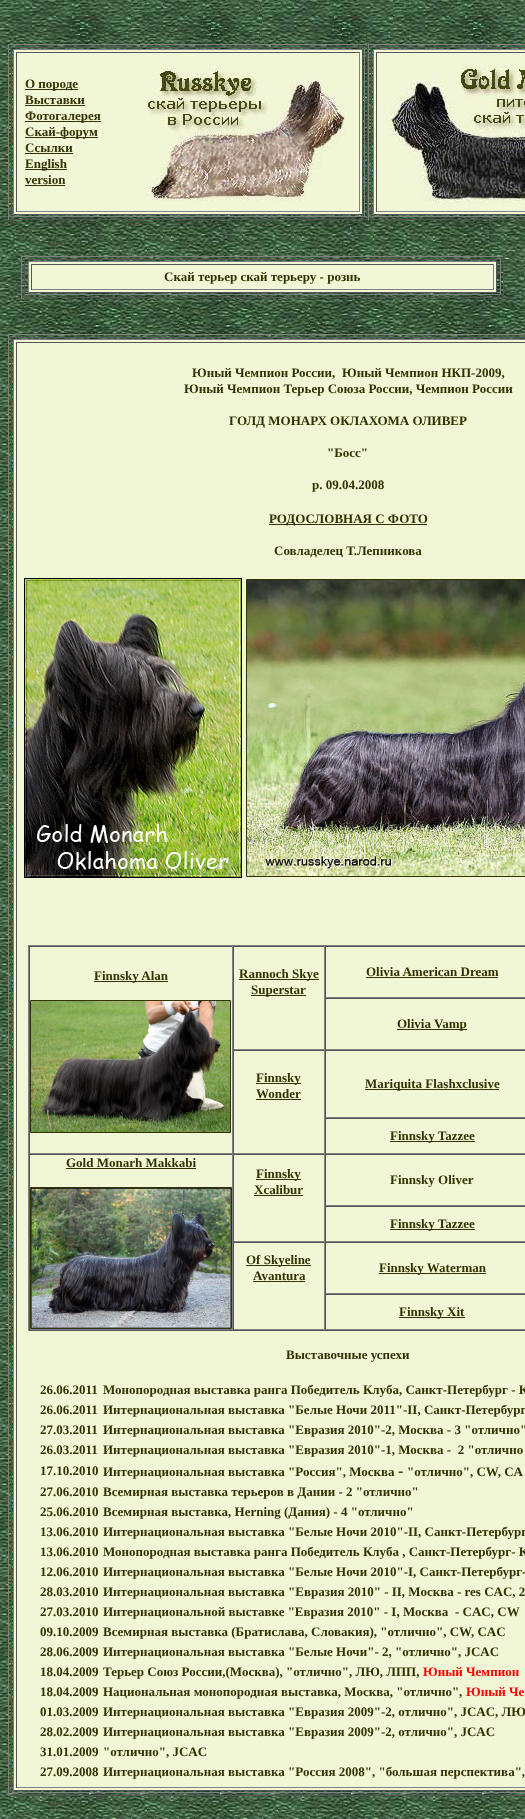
<svg xmlns="http://www.w3.org/2000/svg" width="525" height="1819" viewBox="0 0 525 1819">
  <rect width="100%" height="100%" fill="#fff"/>
  <image x="0" y="0" width="525" height="1819" href="img/1.png"/>
  <image x="9" y="45" width="358" height="174" href="img/2.png"/>
  <path d="M8 44h517v1H8z" fill="#808080"/>
  <path d="M367 44h1v176H367z" fill="#555"/>
  <path d="M8 219h517v1H8z" fill="#555"/>
  <path d="M8 44h1v176H8z" fill="#808080"/>
  <path d="M11 47h354v1H11z" fill="#555"/>
  <path d="M364 47h1v170H364z" fill="#808080"/>
  <path d="M11 216h354v1H11z" fill="#808080"/>
  <path d="M11 47h1v170H11z" fill="#555"/>
  <path d="M14 50h348v164H14z" fill="#f1f6d6"/>
  <path d="M13 49h350v1H13z" fill="#808080"/>
  <path d="M362 49h1v166H362z" fill="#555"/>
  <path d="M13 214h350v1H13z" fill="#555"/>
  <path d="M13 49h1v166H13z" fill="#808080"/>
  <path d="M16 52h344v1H16z" fill="#555"/>
  <path d="M359 52h1v160H359z" fill="#808080"/>
  <path d="M16 211h344v1H16z" fill="#808080"/>
  <path d="M16 52h1v160H16z" fill="#555"/>
  <path d="M25 89h53v1H25z" fill="#330"/>
  <path d="M25 105h60v1H25z" fill="#330"/>
  <path d="M25 121h76v1H25z" fill="#330"/>
  <path d="M25 137h73v1H25z" fill="#330"/>
  <path d="M25 153h48v1H25z" fill="#330"/>
  <path d="M25 169h42v1H25z" fill="#330"/>
  <path d="M25 185h40v1H25z" fill="#330"/>
  <image x="145" y="57" width="200" height="144" href="img/3.png"/>
  <image x="369" y="45" width="156" height="174" href="img/4.png"/>
  <path d="M368 44h1v176H368z" fill="#808080"/>
  <path d="M371 47h154v1H371z" fill="#555"/>
  <path d="M371 216h154v1H371z" fill="#808080"/>
  <path d="M371 47h1v170H371z" fill="#555"/>
  <path d="M374 50h151v164H374z" fill="#f1f6d6"/>
  <path d="M373 49h152v1H373z" fill="#808080"/>
  <path d="M373 214h152v1H373z" fill="#555"/>
  <path d="M373 49h1v166H373z" fill="#808080"/>
  <path d="M376 52h149v1H376z" fill="#555"/>
  <path d="M376 211h149v1H376z" fill="#808080"/>
  <path d="M376 52h1v160H376z" fill="#555"/>
  <image x="381" y="57" width="144" height="149" href="img/5.png"/>
  <image x="22" y="257" width="481" height="40" href="img/6.png"/>
  <path d="M21 256h483v1H21z" fill="#808080"/>
  <path d="M503 256h1v42H503z" fill="#555"/>
  <path d="M21 297h483v1H21z" fill="#555"/>
  <path d="M21 256h1v42H21z" fill="#808080"/>
  <path d="M24 259h477v1H24z" fill="#555"/>
  <path d="M500 259h1v36H500z" fill="#808080"/>
  <path d="M24 294h477v1H24z" fill="#808080"/>
  <path d="M24 259h1v36H24z" fill="#555"/>
  <path d="M29 262h467v30H29z" fill="#f1f6d6"/>
  <path d="M28 261h469v1H28z" fill="#808080"/>
  <path d="M496 261h1v32H496z" fill="#555"/>
  <path d="M28 292h469v1H28z" fill="#555"/>
  <path d="M28 261h1v32H28z" fill="#808080"/>
  <path d="M31 264h463v1H31z" fill="#555"/>
  <path d="M493 264h1v26H493z" fill="#808080"/>
  <path d="M31 289h463v1H31z" fill="#808080"/>
  <path d="M31 264h1v26H31z" fill="#555"/>
  <image x="9" y="335" width="516" height="1460" href="img/7.png"/>
  <path d="M8 334h517v1H8z" fill="#808080"/>
  <path d="M8 1795h517v1H8z" fill="#555"/>
  <path d="M8 334h1v1462H8z" fill="#808080"/>
  <path d="M11 337h514v1H11z" fill="#555"/>
  <path d="M11 1792h514v1H11z" fill="#808080"/>
  <path d="M11 337h1v1456H11z" fill="#555"/>
  <path d="M14 340h511v1450H14z" fill="#f1f6d6"/>
  <path d="M13 339h512v1H13z" fill="#808080"/>
  <path d="M13 1790h512v1H13z" fill="#555"/>
  <path d="M13 339h1v1452H13z" fill="#808080"/>
  <path d="M16 342h509v1H16z" fill="#555"/>
  <path d="M16 1787h509v1H16z" fill="#808080"/>
  <path d="M16 342h1v1446H16z" fill="#555"/>
  <path d="M269 524h158v1H269z" fill="#330"/>
  <image x="24" y="578" width="218" height="300" href="img/8.png"/>
  <path d="M246.5 579.5h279v297H246.5z" fill="none" stroke="#330"/>
  <image x="247" y="580" width="278" height="296" href="img/9.png"/>
  <path d="M28 945h497v1H28z" fill="#808080"/>
  <path d="M28 1330h497v1H28z" fill="#555"/>
  <path d="M28 945h1v386H28z" fill="#808080"/>
  <path d="M29 946h496v1H29z" fill="#555"/>
  <path d="M232 946h1v208H232z" fill="#808080"/>
  <path d="M29 1153h204v1H29z" fill="#808080"/>
  <path d="M29 946h1v208H29z" fill="#555"/>
  <path d="M94 981h74v1H94z" fill="#330"/>
  <path d="M30.5 1000.5h200v132H30.5z" fill="none" stroke="#330"/>
  <image x="31" y="1001" width="199" height="131" href="img/10.png"/>
  <path d="M324 946h1v104H324z" fill="#808080"/>
  <path d="M233 1049h292v1H233z" fill="#808080"/>
  <path d="M233 946h1v104H233z" fill="#555"/>
  <path d="M239 979h80v1H239z" fill="#330"/>
  <path d="M251 995h55v1H251z" fill="#330"/>
  <path d="M325 997h200v1H325z" fill="#808080"/>
  <path d="M325 946h1v52H325z" fill="#555"/>
  <path d="M366 977h132v1H366z" fill="#330"/>
  <path d="M325 998h200v1H325z" fill="#555"/>
  <path d="M325 998h1v52H325z" fill="#555"/>
  <path d="M397 1029h70v1H397z" fill="#330"/>
  <path d="M233 1050h292v1H233z" fill="#555"/>
  <path d="M324 1050h1v104H324z" fill="#808080"/>
  <path d="M233 1153h292v1H233z" fill="#808080"/>
  <path d="M233 1050h1v104H233z" fill="#555"/>
  <path d="M256 1083h45v1H256z" fill="#330"/>
  <path d="M256 1099h45v1H256z" fill="#330"/>
  <path d="M325 1117h200v1H325z" fill="#808080"/>
  <path d="M325 1050h1v68H325z" fill="#555"/>
  <path d="M365 1089h134v1H365z" fill="#330"/>
  <path d="M325 1118h200v1H325z" fill="#555"/>
  <path d="M325 1118h1v36H325z" fill="#555"/>
  <path d="M390 1141h85v1H390z" fill="#330"/>
  <path d="M29 1154h496v1H29z" fill="#555"/>
  <path d="M232 1154h1v176H232z" fill="#808080"/>
  <path d="M29 1329h204v1H29z" fill="#808080"/>
  <path d="M29 1154h1v176H29z" fill="#555"/>
  <path d="M66 1168h130v1H66z" fill="#330"/>
  <path d="M30.5 1187.5h201v141H30.5z" fill="none" stroke="#330"/>
  <image x="31" y="1188" width="200" height="140" href="img/11.png"/>
  <path d="M324 1154h1v88H324z" fill="#808080"/>
  <path d="M233 1241h292v1H233z" fill="#808080"/>
  <path d="M233 1154h1v88H233z" fill="#555"/>
  <path d="M256 1179h45v1H256z" fill="#330"/>
  <path d="M254 1195h49v1H254z" fill="#330"/>
  <path d="M325 1205h200v1H325z" fill="#808080"/>
  <path d="M325 1154h1v52H325z" fill="#555"/>
  <path d="M325 1206h200v1H325z" fill="#555"/>
  <path d="M325 1206h1v36H325z" fill="#555"/>
  <path d="M390 1229h85v1H390z" fill="#330"/>
  <path d="M233 1242h292v1H233z" fill="#555"/>
  <path d="M324 1242h1v88H324z" fill="#808080"/>
  <path d="M233 1329h292v1H233z" fill="#808080"/>
  <path d="M233 1242h1v88H233z" fill="#555"/>
  <path d="M246 1265h65v1H246z" fill="#330"/>
  <path d="M253 1281h52v1H253z" fill="#330"/>
  <path d="M325 1293h200v1H325z" fill="#808080"/>
  <path d="M325 1242h1v52H325z" fill="#555"/>
  <path d="M379 1273h107v1H379z" fill="#330"/>
  <path d="M325 1294h200v1H325z" fill="#555"/>
  <path d="M325 1294h1v36H325z" fill="#555"/>
  <path d="M399 1317h66v1H399z" fill="#330"/>
  <g font-family="Liberation Serif" font-size="13" font-weight="bold" fill="#330">
    <text x="25" y="88">О породе</text>
    <text x="25" y="104">Выставки</text>
    <text x="25" y="120">Фотогалерея</text>
    <text x="25" y="136">Скай-форум</text>
    <text x="25" y="152">Ссылки</text>
    <text x="25" y="168">English</text>
    <text x="25" y="184">version</text>
    <text x="164" y="281">Скай терьер скай терьеру - рознь</text>
    <text x="192" y="377">Юный Чемпион России,</text>
    <text x="342" y="377">Юный Чемпион НКП-2009,</text>
    <text x="184" y="393">Юный Чемпион Терьер Союза России, Чемпион России</text>
    <text x="229" y="425">ГОЛД МОНАРХ ОКЛАХОМА ОЛИВЕР</text>
    <text x="327" y="457">"Босс"</text>
    <text x="312" y="489">р. 09.04.2008</text>
    <text x="269" y="523">РОДОСЛОВНАЯ С ФОТО</text>
    <text x="274" y="555">Совладелец Т.Лепникова</text>
    <text x="94" y="980">Finnsky Alan</text>
    <text x="239" y="978">Rannoch Skye</text>
    <text x="251" y="994">Superstar</text>
    <text x="366" y="976">Olivia American Dream</text>
    <text x="397" y="1028">Olivia Vamp</text>
    <text x="256" y="1082">Finnsky</text>
    <text x="256" y="1098">Wonder</text>
    <text x="365" y="1088">Mariquita Flashxclusive</text>
    <text x="390" y="1140">Finnsky Tazzee</text>
    <text x="66" y="1167">Gold Monarh Makkabi</text>
    <text x="256" y="1178">Finnsky</text>
    <text x="254" y="1194">Xcalibur</text>
    <text x="390" y="1184">Finnsky Oliver</text>
    <text x="390" y="1228">Finnsky Tazzee</text>
    <text x="246" y="1264">Of Skyeline</text>
    <text x="253" y="1280">Avantura</text>
    <text x="379" y="1272">Finnsky Waterman</text>
    <text x="399" y="1316">Finnsky Xit</text>
    <text x="286" y="1359">Выставочные успехи</text>
    <text x="40" y="1394">26.06.2011</text>
    <text x="103" y="1394">Монопородная выставка ранга Победитель Клуба, Санкт-Петербург - К</text>
    <text x="40" y="1414">26.06.2011</text>
    <text x="103" y="1414">Интернациональная выставка "Белые Ночи 2011"-II, Санкт-Петербург</text>
    <text x="40" y="1434">27.03.2011</text>
    <text x="103" y="1434">Интернациональная выставка "Евразия 2010"-2, Москва - 3 "отлично"</text>
    <text x="40" y="1454">26.03.2011</text>
    <text x="103" y="1454" xml:space="preserve">Интернациональная выставка "Евразия 2010"-1, Москва -  2 "отлично</text>
    <text x="40" y="1475">17.10.2010</text>
    <text x="103" y="1476">Интернациональная выставка "Россия", Москва</text>
  </g>
  <text x="398" y="1476" font-family="Liberation Serif" font-size="16" font-weight="bold" fill="#330">-</text>
  <g font-family="Liberation Serif" font-size="13" font-weight="bold" fill="#330">
    <text x="407" y="1476">"отлично", CW, CA</text>
    <text x="40" y="1496">27.06.2010</text>
    <text x="103" y="1496">Всемирная выставка терьеров в Дании - 2 "отлично"</text>
    <text x="40" y="1516">25.06.2010</text>
    <text x="103" y="1516">Всемирная выставка, Herning (Дания) - 4 "отлично"</text>
    <text x="40" y="1536">13.06.2010</text>
    <text x="103" y="1536">Интернациональная выставка "Белые Ночи 2010"-II, Санкт-Петербург</text>
    <text x="40" y="1556">13.06.2010</text>
    <text x="103" y="1556">Монопородная выставка ранга Победитель Клуба , Санкт-Петербург- К</text>
    <text x="40" y="1576">12.06.2010</text>
    <text x="103" y="1576">Интернациональная выставка "Белые Ночи 2010"-I, Санкт-Петербург-</text>
    <text x="40" y="1596">28.03.2010</text>
    <text x="103" y="1596">Интернациональная выставка "Евразия 2010" - II, Москва - res CAC, 2</text>
    <text x="40" y="1616">27.03.2010</text>
    <text x="103" y="1616">Интернациональной выставке "Евразия 2010" - I, Москва</text>
    <text x="455" y="1616">- CAC, CW</text>
    <text x="40" y="1636">09.10.2009</text>
    <text x="103" y="1636">Всемирная выставка (Братислава, Словакия), "отлично", CW, CAC</text>
    <text x="40" y="1656">28.06.2009</text>
    <text x="103" y="1656">Интернациональная выставка "Белые Ночи"- 2, "отлично", JCAC</text>
    <text x="40" y="1676">18.04.2009</text>
    <text x="103" y="1676">Терьер Союз России,(Москва), "отлично", ЛЮ, ЛПП,</text>
  </g>
  <text x="423" y="1676" font-family="Liberation Serif" font-size="13" font-weight="bold" fill="#f00">Юный Чемпион</text>
  <g font-family="Liberation Serif" font-size="13" font-weight="bold" fill="#330">
    <text x="40" y="1696">18.04.2009</text>
    <text x="103" y="1696">Национальная монопородная выставка, Москва, "отлично",</text>
  </g>
  <text x="466" y="1696" font-family="Liberation Serif" font-size="13" font-weight="bold" fill="#f00">Юный Че</text>
  <g font-family="Liberation Serif" font-size="13" font-weight="bold" fill="#330">
    <text x="40" y="1716">01.03.2009</text>
    <text x="103" y="1716">Интернациональная выставка "Евразия 2009"-2, отлично", JCAC, ЛЮ</text>
    <text x="40" y="1736">28.02.2009</text>
    <text x="103" y="1736">Интернациональная выставка "Евразия 2009"-2, отлично", JCAC</text>
    <text x="40" y="1756">31.01.2009</text>
    <text x="103" y="1756">"отлично", JCAC</text>
    <text x="40" y="1776">27.09.2008</text>
    <text x="103" y="1776">Интернациональная выставка "Россия 2008", "большая перспектива",</text>
  </g>
</svg>
